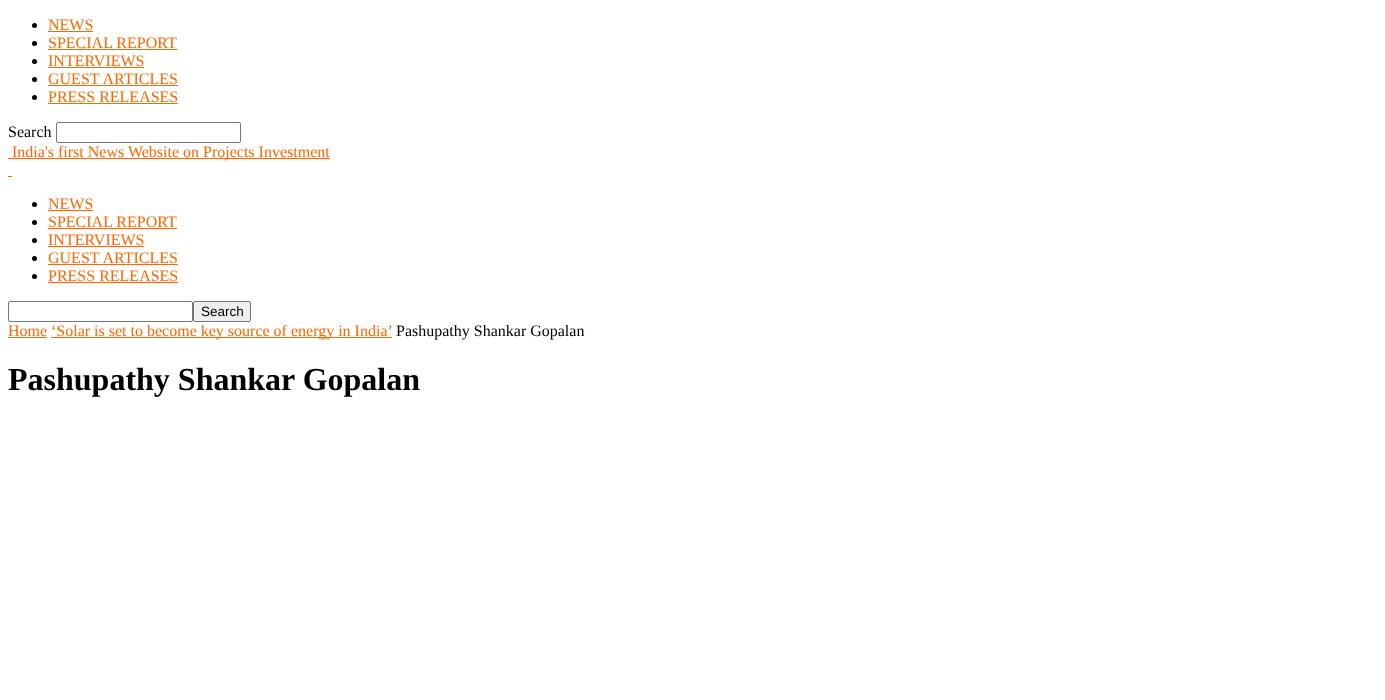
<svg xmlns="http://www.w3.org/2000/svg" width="1385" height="700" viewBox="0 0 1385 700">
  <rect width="100%" height="100%" fill="#fff"/>
  <circle cx="34.5" cy="25.5" r="2.5" fill="#000"/>
  <path d="M48 31h45v1H48z" fill="#f60"/>
  <circle cx="34.5" cy="43.5" r="2.5" fill="#000"/>
  <path d="M48 49h129v1H48z" fill="#f60"/>
  <circle cx="34.5" cy="61.5" r="2.5" fill="#000"/>
  <path d="M48 67h96v1H48z" fill="#f60"/>
  <circle cx="34.5" cy="79.5" r="2.5" fill="#000"/>
  <path d="M48 85h130v1H48z" fill="#f60"/>
  <circle cx="34.5" cy="97.5" r="2.5" fill="#000"/>
  <path d="M48 103h130v1H48z" fill="#f60"/>
  <rect x="56.5" y="122.5" width="184" height="20" rx="1.5" fill="none" stroke="#767676"/>
  <path d="M8 158h322v1H8z" fill="#f60"/>
  <path d="M8 176h4v1H8z" fill="#f60"/>
  <circle cx="34.5" cy="204.5" r="2.5" fill="#000"/>
  <path d="M48 210h45v1H48z" fill="#f60"/>
  <circle cx="34.5" cy="222.5" r="2.5" fill="#000"/>
  <path d="M48 228h129v1H48z" fill="#f60"/>
  <circle cx="34.5" cy="240.5" r="2.5" fill="#000"/>
  <path d="M48 246h96v1H48z" fill="#f60"/>
  <circle cx="34.5" cy="258.5" r="2.5" fill="#000"/>
  <path d="M48 264h130v1H48z" fill="#f60"/>
  <circle cx="34.5" cy="276.5" r="2.5" fill="#000"/>
  <path d="M48 282h130v1H48z" fill="#f60"/>
  <rect x="8.5" y="301.5" width="184" height="20" rx="1.5" fill="none" stroke="#767676"/>
  <rect x="193.5" y="301.5" width="57" height="20" rx="1.5" fill="#efefef" stroke="#767676"/>
  <path d="M8 337h39v1H8z" fill="#f60"/>
  <path d="M51 337h341v1H51z" fill="#f60"/>
  <g font-family="Liberation Serif" font-size="16" fill="#f60">
    <text x="48" y="30">NEWS</text>
    <text x="48" y="48">SPECIAL REPORT</text>
    <text x="48" y="66">INTERVIEWS</text>
    <text x="48" y="84">GUEST ARTICLES</text>
    <text x="48" y="102">PRESS RELEASES</text>
  </g>
  <text x="8" y="137" font-family="Liberation Serif" font-size="16" fill="#000">Search</text>
  <g font-family="Liberation Serif" font-size="16" fill="#f60">
    <text x="12" y="157">India's first News Website on Projects Investment</text>
    <text x="48" y="209">NEWS</text>
    <text x="48" y="227">SPECIAL REPORT</text>
    <text x="48" y="245">INTERVIEWS</text>
    <text x="48" y="263">GUEST ARTICLES</text>
    <text x="48" y="281">PRESS RELEASES</text>
  </g>
  <text x="201" y="316" font-family="Liberation Sans" font-size="13.5" fill="#000">Search</text>
  <g font-family="Liberation Serif" font-size="16" fill="#f60">
    <text x="8" y="336">Home</text>
    <text x="51" y="336">‘Solar is set to become key source of energy in India’</text>
  </g>
  <text x="396" y="336" font-family="Liberation Serif" font-size="16" fill="#000">Pashupathy Shankar Gopalan</text>
  <text x="8" y="390" font-family="Liberation Serif" font-size="32" font-weight="bold" fill="#000">Pashupathy Shankar Gopalan</text>
</svg>
